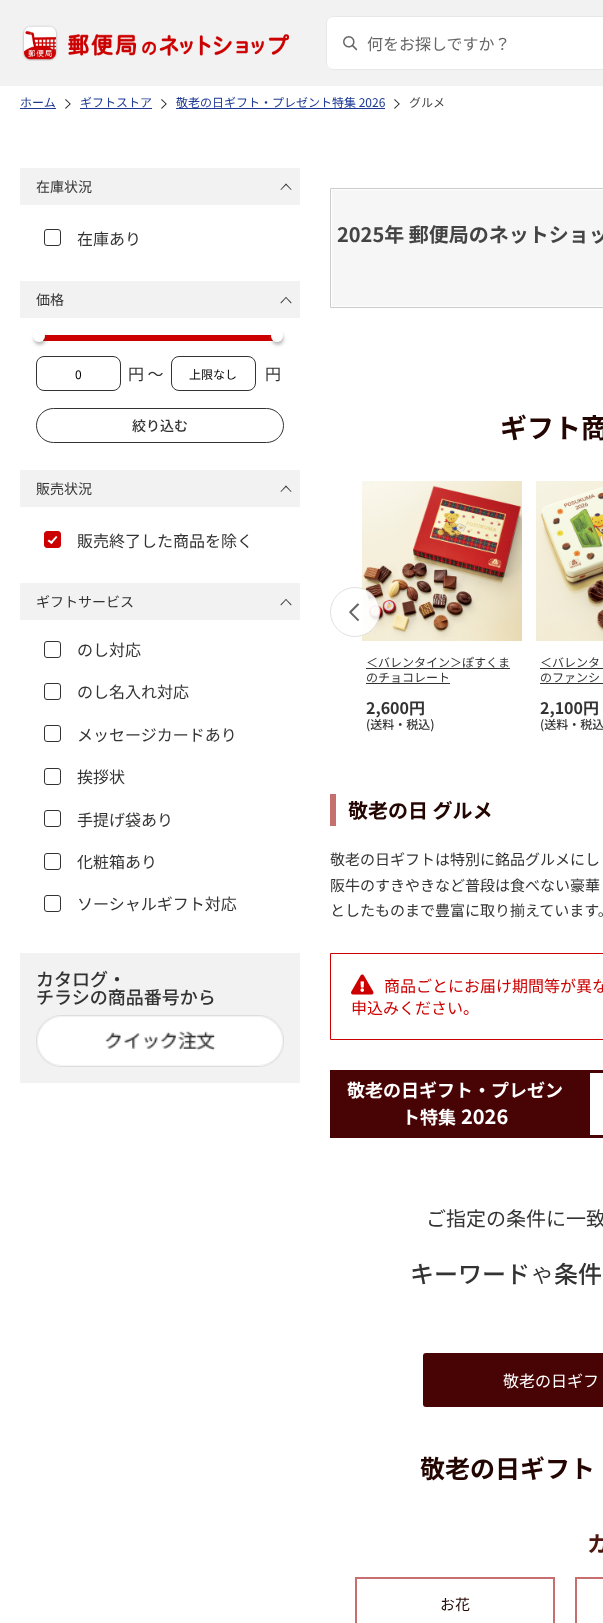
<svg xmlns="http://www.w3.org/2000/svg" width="603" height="1623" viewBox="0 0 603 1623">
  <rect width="100%" height="100%" fill="#fff"/>
  <path d="M0 0h603v86H0z" fill="#f2f2f2"/>
  <image x="22" y="25" width="267" height="36" href="img/1.png"/>
  <rect x="326.5" y="16.5" width="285" height="53" rx="7.5" fill="none" stroke="#e8e8e8"/>
  <rect x="327" y="17" width="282" height="52" rx="6" fill="#fff"/>
  <image x="343" y="36" width="15" height="15" href="img/2.png"/>
  <path d="M20 108h36v1H20z" fill="#1d3994"/>
  <image x="65" y="99" width="6" height="10" href="img/3.png"/>
  <path d="M80 108h72v1H80z" fill="#1d3994"/>
  <image x="161" y="99" width="6" height="10" href="img/3.png"/>
  <path d="M176 108h209v1H176z" fill="#1d3994"/>
  <image x="394" y="99" width="6" height="10" href="img/3.png"/>
  <path d="M20 168h280v37H20z" fill="#f2f2f2"/>
  <path d="M280.5 189.5L286 183.5L286.5 184.5L281 190Z" fill="#333"/>
  <path d="M285.5 184.5L286 183.5L291.5 189.5L291 190Z" fill="#333"/>
  <rect x="44.5" y="229.5" width="16" height="16" rx="2.5" fill="none" stroke="#333"/>
  <path d="M20 281h280v37H20z" fill="#f2f2f2"/>
  <path d="M280.5 302.5L286 297L286.5 297.5L281 303.5Z" fill="#333"/>
  <path d="M285.5 297.5L286 297L291.5 302.5L291 303.5Z" fill="#333"/>
  <rect x="41" y="335" width="238" height="6" rx="3" fill="#c00"/>
  <rect x="36" y="336" width="6" height="6" rx="3" fill="#bbb" filter="blur(3px)"/>
  <rect x="34" y="333" width="12" height="12" rx="6" fill="#00000033" filter="blur(1.5px)"/>
  <circle cx="39" cy="336" r="6" fill="#fff"/>
  <rect x="274" y="336" width="6" height="6" rx="3" fill="#bbb" filter="blur(3px)"/>
  <rect x="272" y="333" width="12" height="12" rx="6" fill="#00000033" filter="blur(1.5px)"/>
  <circle cx="277" cy="336" r="6" fill="#fff"/>
  <rect x="36.5" y="356.5" width="84" height="34" rx="7.5" fill="none" stroke="#333"/>
  <rect x="171.5" y="356.5" width="84" height="34" rx="7.5" fill="none" stroke="#333"/>
  <rect x="36.5" y="408.5" width="247" height="34" rx="17" fill="none" stroke="#333"/>
  <path d="M20 470h280v37H20z" fill="#f2f2f2"/>
  <path d="M280.5 491.5L286 485.5L286.5 486.5L281 492Z" fill="#333"/>
  <path d="M285.5 486.5L286 485.5L291.5 491.5L291 492Z" fill="#333"/>
  <rect x="44.5" y="531.5" width="16" height="16" rx="2.5" fill="#c00" stroke="#c00"/>
  <path d="M50 542.5L56 536L57.5 537L51.5 544Z" fill="#fff"/>
  <path d="M47.5 541L49 539.5L53 542.5L51.5 544Z" fill="#fff"/>
  <path d="M20 583h280v37H20z" fill="#f2f2f2"/>
  <path d="M280.5 604.5L286 599L286.5 599.5L281 605.5Z" fill="#333"/>
  <path d="M285.5 599.5L286 599L291.5 604.5L291 605.5Z" fill="#333"/>
  <rect x="44.5" y="641.5" width="16" height="16" rx="2.5" fill="none" stroke="#333"/>
  <rect x="44.5" y="683.5" width="16" height="16" rx="2.5" fill="none" stroke="#333"/>
  <rect x="44.5" y="725.5" width="16" height="16" rx="2.5" fill="none" stroke="#333"/>
  <rect x="44.5" y="768.5" width="16" height="16" rx="2.5" fill="none" stroke="#333"/>
  <rect x="44.5" y="810.5" width="16" height="16" rx="2.5" fill="none" stroke="#333"/>
  <rect x="44.5" y="853.5" width="16" height="16" rx="2.5" fill="none" stroke="#333"/>
  <rect x="44.5" y="895.5" width="16" height="16" rx="2.5" fill="none" stroke="#333"/>
  <path d="M20 953h280v130H20z" fill="#f2f2f2"/>
  <image x="36" y="1015" width="248" height="52" href="img/4.png"/>
  <path d="M332 190h271v116H332z" fill="#f6f6f6"/>
  <path d="M330.5 188.5h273v119H330.5z" fill="none" stroke="#ccc"/>
  <image x="362" y="481" width="160" height="160" href="img/6.png"/>
  <image x="330" y="587" width="50" height="50" href="img/5.png"/>
  <path d="M366 668h144v1H366z" fill="#333"/>
  <path d="M366 683h84v1H366z" fill="#333"/>
  <image x="536" y="481" width="67" height="160" href="img/7.png"/>
  <path d="M540 668h63v1H540z" fill="#333"/>
  <path d="M540 683h63v1H540z" fill="#333"/>
  <path d="M330 794h6v32H330z" fill="#c76f6f"/>
  <path d="M330.5 953.5h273v86H330.5z" fill="none" stroke="#c00"/>
  <image x="351" y="974" width="23" height="21" href="img/8.png"/>
  <path d="M330 1070h273v68H330z" fill="#480404"/>
  <path d="M590 1073h13v62H590z" fill="#fff"/>
  <rect x="423" y="1353" width="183" height="54" rx="3" fill="#480404"/>
  <path d="M356 1578h198v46H356z" fill="none" stroke="#c76f6f" stroke-width="2"/>
  <path d="M576 1578h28v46H576z" fill="none" stroke="#c76f6f" stroke-width="2"/>
  <text x="367" y="50" font-family="Noto Sans JP" font-size="16" fill="#666">何をお探しですか？</text>
  <g font-family="Noto Sans JP" font-size="12" fill="#1d3994">
    <text x="20" y="107">ホーム</text>
    <text x="80" y="107">ギフトストア</text>
    <text x="176" y="107">敬老の日ギフト・プレゼント特集 2026</text>
  </g>
  <text x="409" y="107" font-family="Noto Sans JP" font-size="12" fill="#444">グルメ</text>
  <text x="36" y="192" font-family="Noto Sans JP" font-size="14" fill="#333">在庫状況</text>
  <text x="77" y="245" font-family="Noto Sans JP" font-size="16" fill="#333">在庫あり</text>
  <text x="36" y="305" font-family="Noto Sans JP" font-size="14" fill="#333">価格</text>
  <text x="75" y="379" font-family="Noto Sans JP" font-size="12" fill="#000">0</text>
  <text x="128" y="380" font-family="Noto Sans JP" font-size="16" fill="#333">円 ～</text>
  <text x="189" y="379" font-family="Noto Sans JP" font-size="12" fill="#000">上限なし</text>
  <text x="265" y="380" font-family="Noto Sans JP" font-size="16" fill="#333">円</text>
  <text x="132" y="431" font-family="Noto Sans JP" font-size="14" font-weight="500" fill="#333">絞り込む</text>
  <text x="36" y="494" font-family="Noto Sans JP" font-size="14" fill="#333">販売状況</text>
  <text x="77" y="547" font-family="Noto Sans JP" font-size="16" fill="#333">販売終了した商品を除く</text>
  <text x="36" y="607" font-family="Noto Sans JP" font-size="14" fill="#333">ギフトサービス</text>
  <g font-family="Noto Sans JP" font-size="16" fill="#333">
    <text x="77" y="656">のし対応</text>
    <text x="77" y="698">のし名入れ対応</text>
    <text x="77" y="741">メッセージカードあり</text>
    <text x="77" y="783">挨拶状</text>
    <text x="77" y="826">手提げ袋あり</text>
    <text x="77" y="868">化粧箱あり</text>
    <text x="77" y="910">ソーシャルギフト対応</text>
  </g>
  <g font-family="Noto Sans JP" font-size="18" font-weight="500" fill="#333">
    <text x="36" y="986">カタログ・</text>
    <text x="36" y="1004">チラシの商品番号から</text>
  </g>
  <text x="337" y="242" font-family="Noto Sans JP" font-size="20" font-weight="bold" fill="#444">2025年 郵便局のネットショッ</text>
  <text x="500" y="438" font-family="Noto Sans JP" font-size="27" font-weight="bold" fill="#230501">ギフト商</text>
  <g font-family="Noto Sans JP" font-size="12" fill="#333">
    <text x="366" y="667">＜バレンタイン＞ぽすくま</text>
    <text x="366" y="682">のチョコレート</text>
  </g>
  <text x="366" y="714" font-family="Noto Sans JP" font-size="16" font-weight="bold" fill="#333">2,600円</text>
  <text x="366" y="729" font-family="Noto Sans JP" font-size="12" font-weight="500" fill="#333">(送料・税込)</text>
  <g font-family="Noto Sans JP" font-size="12" fill="#333">
    <text x="540" y="667">＜バレンタ</text>
    <text x="540" y="682">のファンシ</text>
  </g>
  <text x="540" y="714" font-family="Noto Sans JP" font-size="16" font-weight="bold" fill="#333">2,100円</text>
  <text x="540" y="729" font-family="Noto Sans JP" font-size="12" font-weight="500" fill="#333">(送料・税込</text>
  <text x="348" y="818" font-family="Noto Sans JP" font-size="20" font-weight="bold" fill="#230501">敬老の日 グルメ</text>
  <g font-family="Noto Sans JP" font-size="15" fill="#333">
    <text x="330" y="865">敬老の日ギフトは特別に銘品グルメにし</text>
    <text x="330" y="891">阪牛のすきやきなど普段は食べない豪華</text>
    <text x="330" y="916">としたものまで豊富に取り揃えています。</text>
  </g>
  <g font-family="Noto Sans JP" font-size="16" fill="#c00">
    <text x="384" y="992">商品ごとにお届け期間等が異な</text>
    <text x="351" y="1014">申込みください。</text>
  </g>
  <g font-family="Noto Sans JP" font-size="18" font-weight="bold" fill="#fff">
    <text x="347" y="1097">敬老の日ギフト・プレゼン</text>
    <text x="402" y="1124">ト特集</text>
  </g>
  <text x="461" y="1124" font-family="Noto Sans JP" font-size="20" font-weight="bold" fill="#fff">2026</text>
  <text x="426" y="1226" font-family="Noto Sans JP" font-size="20" fill="#333">ご指定の条件に一致</text>
  <text x="410" y="1283" font-family="Noto Sans JP" font-size="24" font-weight="500" fill="#333">キーワード</text>
  <text x="532" y="1283" font-family="Noto Sans JP" font-size="20" fill="#333">や</text>
  <text x="554" y="1283" font-family="Noto Sans JP" font-size="24" font-weight="500" fill="#333">条件</text>
  <text x="503" y="1387" font-family="Noto Sans JP" font-size="16" fill="#fff">敬老の日ギフ</text>
  <text x="420" y="1478" font-family="Noto Sans JP" font-size="25" font-weight="bold" fill="#230501">敬老の日ギフト</text>
  <text x="587" y="1552" font-family="Noto Sans JP" font-size="22" font-weight="bold" fill="#4e170f">カ</text>
  <text x="440" y="1610" font-family="Noto Sans JP" font-size="15" fill="#230501">お花</text>
</svg>
